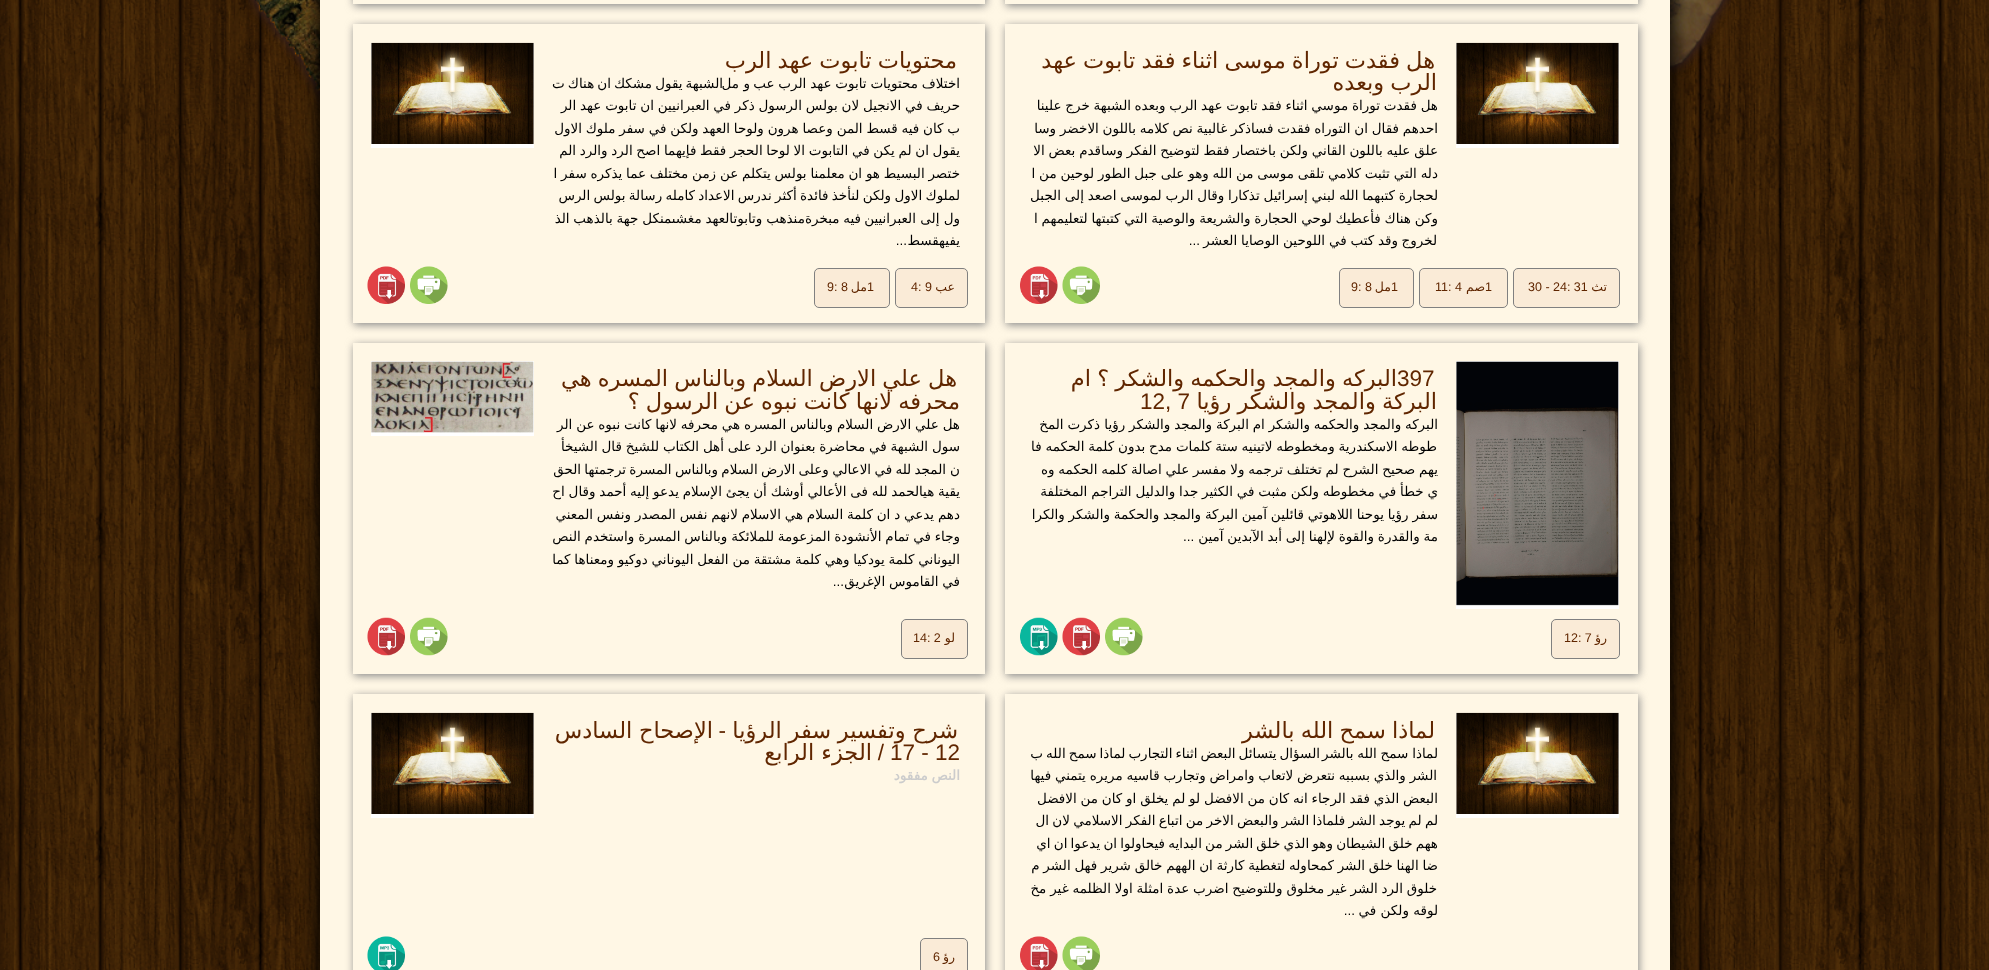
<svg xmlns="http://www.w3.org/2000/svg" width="1989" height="970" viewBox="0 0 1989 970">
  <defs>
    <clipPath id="clip1"><path d="M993 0H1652V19H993ZM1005-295H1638V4H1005Z" clip-rule="evenodd"/></clipPath>
    <clipPath id="clip2"><path d="M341 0H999V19H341ZM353-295H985V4H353Z" clip-rule="evenodd"/></clipPath>
    <clipPath id="clip3"><path d="M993 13H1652V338H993ZM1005 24H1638V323H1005Z" clip-rule="evenodd"/></clipPath>
    <clipPath id="clip4"><path d="M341 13H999V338H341ZM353 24H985V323H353Z" clip-rule="evenodd"/></clipPath>
    <clipPath id="clip5"><path d="M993 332H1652V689H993ZM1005 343H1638V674H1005Z" clip-rule="evenodd"/></clipPath>
    <clipPath id="clip6"><path d="M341 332H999V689H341ZM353 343H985V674H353Z" clip-rule="evenodd"/></clipPath>
    <clipPath id="clip7"><path d="M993 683H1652V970H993ZM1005 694H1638V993H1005Z" clip-rule="evenodd"/></clipPath>
    <clipPath id="clip8"><path d="M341 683H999V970H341ZM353 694H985V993H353Z" clip-rule="evenodd"/></clipPath>
  </defs>
  <rect width="100%" height="100%" fill="#fff"/>
  <image x="0" y="0" width="1989" height="970" href="img/1.png"/>
  <image x="248" y="0" width="1483" height="111" href="img/2.png"/>
  <path d="M318 -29h1355v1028H318z" fill="#000" filter="blur(9.5px)"/>
  <path d="M320 0h1350v970H320z" fill="#fff7e5"/>
  <g clip-path="url(#clip1)">
    <path d="M1006 -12h633v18H1006z" fill="#888" filter="blur(4px)"/>
  </g>
  <g clip-path="url(#clip2)">
    <path d="M354 -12h632v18H354z" fill="#888" filter="blur(4px)"/>
  </g>
  <g clip-path="url(#clip3)">
    <path d="M1006 26h633v299H1006z" fill="#888" filter="blur(4px)"/>
  </g>
  <path d="M1456 43h163v105H1456z" fill="#fff"/>
  <image x="1456" y="42" width="163" height="102" href="img/3.png"/>
  <rect x="1513.5" y="268.5" width="106" height="39" rx="4.5" fill="#faebd7" stroke="#808080"/>
  <rect x="1419.5" y="268.5" width="88" height="39" rx="4.5" fill="#faebd7" stroke="#808080"/>
  <rect x="1339.5" y="268.5" width="74" height="39" rx="4.5" fill="#faebd7" stroke="#808080"/>
  <image x="1062" y="266" width="38" height="38" href="img/4.png"/>
  <image x="1020" y="266" width="38" height="38" href="img/5.png"/>
  <g clip-path="url(#clip4)">
    <path d="M354 26h632v299H354z" fill="#888" filter="blur(4px)"/>
  </g>
  <path d="M371 43h163v105H371z" fill="#fff"/>
  <image x="371" y="42" width="163" height="102" href="img/6.png"/>
  <rect x="895.5" y="268.5" width="72" height="39" rx="4.5" fill="#faebd7" stroke="#808080"/>
  <rect x="814.5" y="268.5" width="75" height="39" rx="4.5" fill="#faebd7" stroke="#808080"/>
  <image x="410" y="266" width="38" height="38" href="img/7.png"/>
  <image x="367" y="266" width="38" height="38" href="img/8.png"/>
  <g clip-path="url(#clip5)">
    <path d="M1006 345h633v331H1006z" fill="#888" filter="blur(4px)"/>
  </g>
  <path d="M1456 361h163v248H1456z" fill="#fff"/>
  <image x="1456" y="361" width="163" height="245" href="img/9.png"/>
  <rect x="1551.5" y="619.5" width="68" height="39" rx="4.5" fill="#faebd7" stroke="#808080"/>
  <image x="1105" y="617" width="38" height="39" href="img/10.png"/>
  <image x="1062" y="617" width="38" height="39" href="img/11.png"/>
  <image x="1020" y="617" width="38" height="39" href="img/12.png"/>
  <g clip-path="url(#clip6)">
    <path d="M354 345h632v331H354z" fill="#888" filter="blur(4px)"/>
  </g>
  <path d="M371 361h163v75H371z" fill="#fff"/>
  <image x="371" y="361" width="163" height="72" href="img/13.png"/>
  <rect x="901.5" y="619.5" width="66" height="39" rx="4.5" fill="#faebd7" stroke="#808080"/>
  <image x="410" y="617" width="38" height="39" href="img/10.png"/>
  <image x="367" y="617" width="38" height="39" href="img/11.png"/>
  <g clip-path="url(#clip7)">
    <path d="M1006 696h633v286H1006z" fill="#888" filter="blur(4px)"/>
  </g>
  <path d="M1456 713h163v105H1456z" fill="#fff"/>
  <image x="1456" y="712" width="163" height="102" href="img/14.png"/>
  <image x="1062" y="936" width="38" height="34" href="img/15.png"/>
  <image x="1020" y="936" width="38" height="34" href="img/16.png"/>
  <g clip-path="url(#clip8)">
    <path d="M354 696h632v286H354z" fill="#888" filter="blur(4px)"/>
  </g>
  <path d="M371 713h163v105H371z" fill="#fff"/>
  <image x="371" y="712" width="163" height="102" href="img/17.png"/>
  <rect x="920.5" y="938.5" width="47" height="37" rx="4.5" fill="#faebd7" stroke="#808080"/>
  <image x="367" y="936" width="38" height="34" href="img/18.png"/>
  <g font-family="DejaVu Sans" font-size="22.5" direction="rtl" fill="#602600">
    <text x="1435" y="68" word-spacing="-1">هل فقدت توراة موسى اثناء فقد تابوت عهد</text>
    <text x="1437" y="90" word-spacing="-1">الرب وبعده</text>
  </g>
  <g font-family="DejaVu Sans" font-size="13.5" direction="rtl" fill="#000">
    <text x="1438" y="110" word-spacing="-0.5">هل فقدت توراة موسي اثناء فقد تابوت عهد الرب وبعده</text>
    <text x="1131" y="110" word-spacing="-0.5">الشبهة خرج علينا</text>
    <text x="1438" y="133" word-spacing="-0.5">احدهم فقال ان التوراه فقدت فساذكر غالبية نص كلامه باللون الاخضر وسا</text>
    <text x="1438" y="155" word-spacing="-0.5">علق عليه باللون القاني ولكن باختصار فقط لتوضيح الفكر وساقدم بعض الا</text>
    <text x="1438" y="178" word-spacing="-0.5">دله التي تثبت كلامي تلقى موسى من الله وهو على جبل الطور لوحين من ا</text>
    <text x="1438" y="200" word-spacing="-0.5">لحجارة كتبهما الله لبني إسرائيل تذكارا وقال الرب لموسى اصعد إلى الجبل</text>
    <text x="1438" y="223" word-spacing="-0.5">وكن هناك فأعطيك لوحي الحجارة والشريعة والوصية التي كتبتها لتعليمهم ا</text>
    <text x="1437" y="245">لخروج</text>
    <text x="1398" y="245" word-spacing="-0.5">وقد كتب في اللوحين الوصايا العشر</text>
  </g>
  <text x="1200" y="245" font-family="Liberation Sans" font-size="13.5" direction="rtl" fill="#000">...</text>
  <text x="1607" y="291" font-family="DejaVu Sans" font-size="12.5" direction="rtl" fill="#602600">تث</text>
  <g font-family="Liberation Sans" font-size="12.5" fill="#602600">
    <text x="1528" y="291">30 - 24: 31</text>
    <text x="1485" y="291">1</text>
  </g>
  <text x="1485" y="291" font-family="DejaVu Sans" font-size="12.5" direction="rtl" fill="#602600">صم</text>
  <g font-family="Liberation Sans" font-size="12.5" fill="#602600">
    <text x="1435" y="291">11: 4</text>
    <text x="1391" y="291">1</text>
  </g>
  <text x="1391" y="291" font-family="DejaVu Sans" font-size="12.5" direction="rtl" fill="#602600">مل</text>
  <text x="1351" y="291" font-family="Liberation Sans" font-size="12.5" fill="#602600">9: 8</text>
  <text x="957" y="68" word-spacing="-1" font-family="DejaVu Sans" font-size="22.5" direction="rtl" fill="#602600">محتويات تابوت عهد الرب</text>
  <g font-family="DejaVu Sans" font-size="13.5" direction="rtl" fill="#000">
    <text x="960" y="88" word-spacing="-0.5">اختلاف محتويات تابوت عهد الرب عب</text>
    <text x="750" y="88">و</text>
    <text x="739" y="88">مل</text>
    <text x="723" y="88" word-spacing="-1.25">الشبهة يقول مشكك ان هناك ت</text>
    <text x="960" y="110" word-spacing="-0.5">حريف في الانجيل لان بولس الرسول ذكر في العبرانيين ان تابوت عهد الر</text>
    <text x="960" y="133" word-spacing="-0.5">ب كان فيه قسط المن وعصا هرون ولوحا العهد ولكن في سفر ملوك الاول</text>
    <text x="960" y="155" word-spacing="-0.6">يقول ان لم يكن في التابوت الا لوحا الحجر فقط فإيهما اصح الرد والرد الم</text>
    <text x="960" y="178" word-spacing="-0.5">ختصر البسيط هو ان معلمنا بولس يتكلم عن زمن مختلف عما يذكره سفر ا</text>
    <text x="960" y="200" word-spacing="-1">لملوك الاول ولكن لنأخذ فائدة أكثر ندرس الاعداد كامله رسالة بولس الرس</text>
    <text x="960" y="223">ول إلى العبرانيين</text>
    <text x="861" y="223" word-spacing="-0.5">فيه مبخرةمنذهب وتابوتالعهد مغشىمنكل جهة بالذهب الذ</text>
    <text x="960" y="245">يفيهقسط</text>
  </g>
  <text x="907" y="245" font-family="Liberation Sans" font-size="13.5" direction="rtl" fill="#000">...</text>
  <text x="955" y="291" font-family="DejaVu Sans" font-size="12.5" direction="rtl" fill="#602600">عب</text>
  <g font-family="Liberation Sans" font-size="12.5" fill="#602600">
    <text x="911" y="291">4: 9</text>
    <text x="867" y="291">1</text>
  </g>
  <text x="867" y="291" font-family="DejaVu Sans" font-size="12.5" direction="rtl" fill="#602600">مل</text>
  <text x="827" y="291" font-family="Liberation Sans" font-size="12.5" fill="#602600">9: 8</text>
  <text x="1397" y="386" word-spacing="-1" font-family="DejaVu Sans" font-size="22.5" direction="rtl" fill="#602600">البركه والمجد والحكمه والشكر ؟ ام</text>
  <text x="1397" y="386" font-family="Liberation Sans" font-size="22.5" fill="#602600">397</text>
  <text x="1437" y="409" word-spacing="-1" font-family="DejaVu Sans" font-size="22.5" direction="rtl" fill="#602600">البركة والمجد والشكر رؤيا</text>
  <text x="1140" y="409" font-family="Liberation Sans" font-size="22.5" fill="#602600">12, 7</text>
  <g font-family="DejaVu Sans" font-size="13.5" direction="rtl" fill="#000">
    <text x="1438" y="429" word-spacing="-0.5">البركه والمجد والحكمه والشكر ام البركة والمجد والشكر رؤيا</text>
    <text x="1100" y="429" word-spacing="-0.5">ذكرت المخ</text>
    <text x="1437" y="451" word-spacing="-0.5">طوطه الاسكندرية ومخطوطه لاتينيه ستة كلمات مدح بدون كلمة الحكمه فا</text>
    <text x="1438" y="474" word-spacing="-0.5">يهم صحيح الشرح لم تختلف ترجمه ولا مفسر علي اصالة كلمه الحكمه وه</text>
    <text x="1438" y="496" word-spacing="-0.5">ي خطأ في مخطوطه ولكن مثبت في الكثير جدا والدليل التراجم المختلفة</text>
    <text x="1438" y="519" word-spacing="-0.5">سفر رؤيا يوحنا اللاهوتي</text>
    <text x="1304" y="519" word-spacing="-0.5">قائلين آمين البركة والمجد والحكمة والشكر والكرا</text>
    <text x="1438" y="541" word-spacing="-0.5">مة والقدرة والقوة لإلهنا إلى أبد الآبدين آمين</text>
  </g>
  <text x="1183" y="541" font-family="Liberation Sans" font-size="13.5" fill="#000">...</text>
  <text x="1607" y="642" font-family="DejaVu Sans" font-size="12.5" direction="rtl" fill="#602600">رؤ</text>
  <text x="1564" y="642" font-family="Liberation Sans" font-size="12.5" fill="#602600">12: 7</text>
  <g font-family="DejaVu Sans" font-size="22.5" direction="rtl" fill="#602600">
    <text x="957" y="386" word-spacing="-1">هل علي الارض السلام وبالناس المسره هي</text>
    <text x="960" y="409" word-spacing="-1">محرفه لانها كانت نبوه عن الرسول ؟</text>
  </g>
  <g font-family="DejaVu Sans" font-size="13.5" direction="rtl" fill="#000">
    <text x="960" y="429" word-spacing="-0.5">هل علي الارض السلام وبالناس المسره هي محرفه لانها كانت نبوه عن الر</text>
    <text x="960" y="451">سول</text>
    <text x="928" y="451" word-spacing="-0.5">الشبهة في محاضرة بعنوان الرد على أهل الكتاب للشيخ قال الشيخأ</text>
    <text x="960" y="474">ن</text>
    <text x="946" y="474" word-spacing="-1">المجد لله في الاعالي وعلى الارض السلام وبالناس المسرة ترجمتها الحق</text>
    <text x="960" y="496" word-spacing="-0.5">يقية هيالحمد لله فى الأعالي أوشك أن يجئ الإسلام يدعو إليه أحمد وقال اح</text>
    <text x="960" y="519" word-spacing="-0.5">دهم يدعي د ان كلمة السلام هي الاسلام لانهم نفس المصدر ونفس المعني</text>
    <text x="960" y="541" word-spacing="-0.5">وجاء في تمام الأنشودة المزعومة للملائكة وبالناس المسرة واستخدم النص</text>
    <text x="960" y="564" word-spacing="-0.5">اليوناني كلمة يودكيا وهي كلمة مشتقة من الفعل اليوناني دوكيو ومعناها كما</text>
    <text x="960" y="586" word-spacing="-0.5">في القاموس الإغريق</text>
  </g>
  <text x="844" y="586" font-family="Liberation Sans" font-size="13.5" direction="rtl" fill="#000">...</text>
  <text x="955" y="642" font-family="DejaVu Sans" font-size="12.5" direction="rtl" fill="#602600">لو</text>
  <text x="913" y="642" font-family="Liberation Sans" font-size="12.5" fill="#602600">14: 2</text>
  <text x="1435" y="738" word-spacing="-1" font-family="DejaVu Sans" font-size="22.5" direction="rtl" fill="#602600">لماذا سمح الله بالشر</text>
  <g font-family="DejaVu Sans" font-size="13.5" direction="rtl" fill="#000">
    <text x="1438" y="758" word-spacing="-0.5">لماذا سمح الله بالشر</text>
    <text x="1320" y="758" word-spacing="-1.25">السؤال يتسائل البعض اثناء التجارب لماذا سمح الله ب</text>
    <text x="1437" y="780" word-spacing="-0.5">الشر والذي بسببه نتعرض لاتعاب وامراض وتجارب قاسيه مريره يتمني فيها</text>
    <text x="1438" y="803" word-spacing="-0.5">البعض الذي فقد الرجاء انه كان من الافضل لو لم يخلق او كان من الافضل</text>
    <text x="1438" y="825" word-spacing="-1">لم لم يوجد الشر فلماذا الشر والبعض الاخر من اتباع الفكر الاسلامي لان ال</text>
    <text x="1438" y="848" word-spacing="-1.1">ههم خلق الشيطان وهو الذي خلق الشر من البدايه فيحاولوا ان يدعوا ان اي</text>
    <text x="1438" y="870" word-spacing="-0.6">ضا الهنا خلق الشر كمحاوله لتغطية كارثة ان الههم خالق شرير فهل الشر م</text>
    <text x="1437" y="893" word-spacing="-0.5">خلوق الرد الشر غير مخلوق وللتوضيح اضرب عدة امثلة اولا الظلمه غير مخ</text>
    <text x="1438" y="915">لوقه ولكن في</text>
  </g>
  <text x="1355" y="915" font-family="Liberation Sans" font-size="13.5" direction="rtl" fill="#000">...</text>
  <text x="958" y="738" word-spacing="-0.5" font-family="DejaVu Sans" font-size="22.5" direction="rtl" fill="#602600">شرح وتفسير سفر الرؤيا</text>
  <text x="726" y="738" font-family="Liberation Sans" font-size="22.5" direction="rtl" fill="#602600">-</text>
  <text x="713" y="738" word-spacing="-0.5" font-family="DejaVu Sans" font-size="22.5" direction="rtl" fill="#602600">الإصحاح السادس</text>
  <text x="890" y="760" font-family="Liberation Sans" font-size="22.5" fill="#602600">17 - 12</text>
  <text x="884" y="760" font-family="Liberation Sans" font-size="22.5" direction="rtl" fill="#602600">/</text>
  <text x="872" y="760" font-family="DejaVu Sans" font-size="22.5" direction="rtl" fill="#602600">الجزء الرابع</text>
  <text x="960" y="780" word-spacing="-0.5" font-family="DejaVu Sans" font-size="13.5" font-weight="bold" direction="rtl" fill="#ccc">النص مفقود</text>
  <text x="955" y="961" font-family="DejaVu Sans" font-size="12.5" direction="rtl" fill="#602600">رؤ</text>
  <text x="933" y="961" font-family="Liberation Sans" font-size="12.5" fill="#602600">6</text>
</svg>
